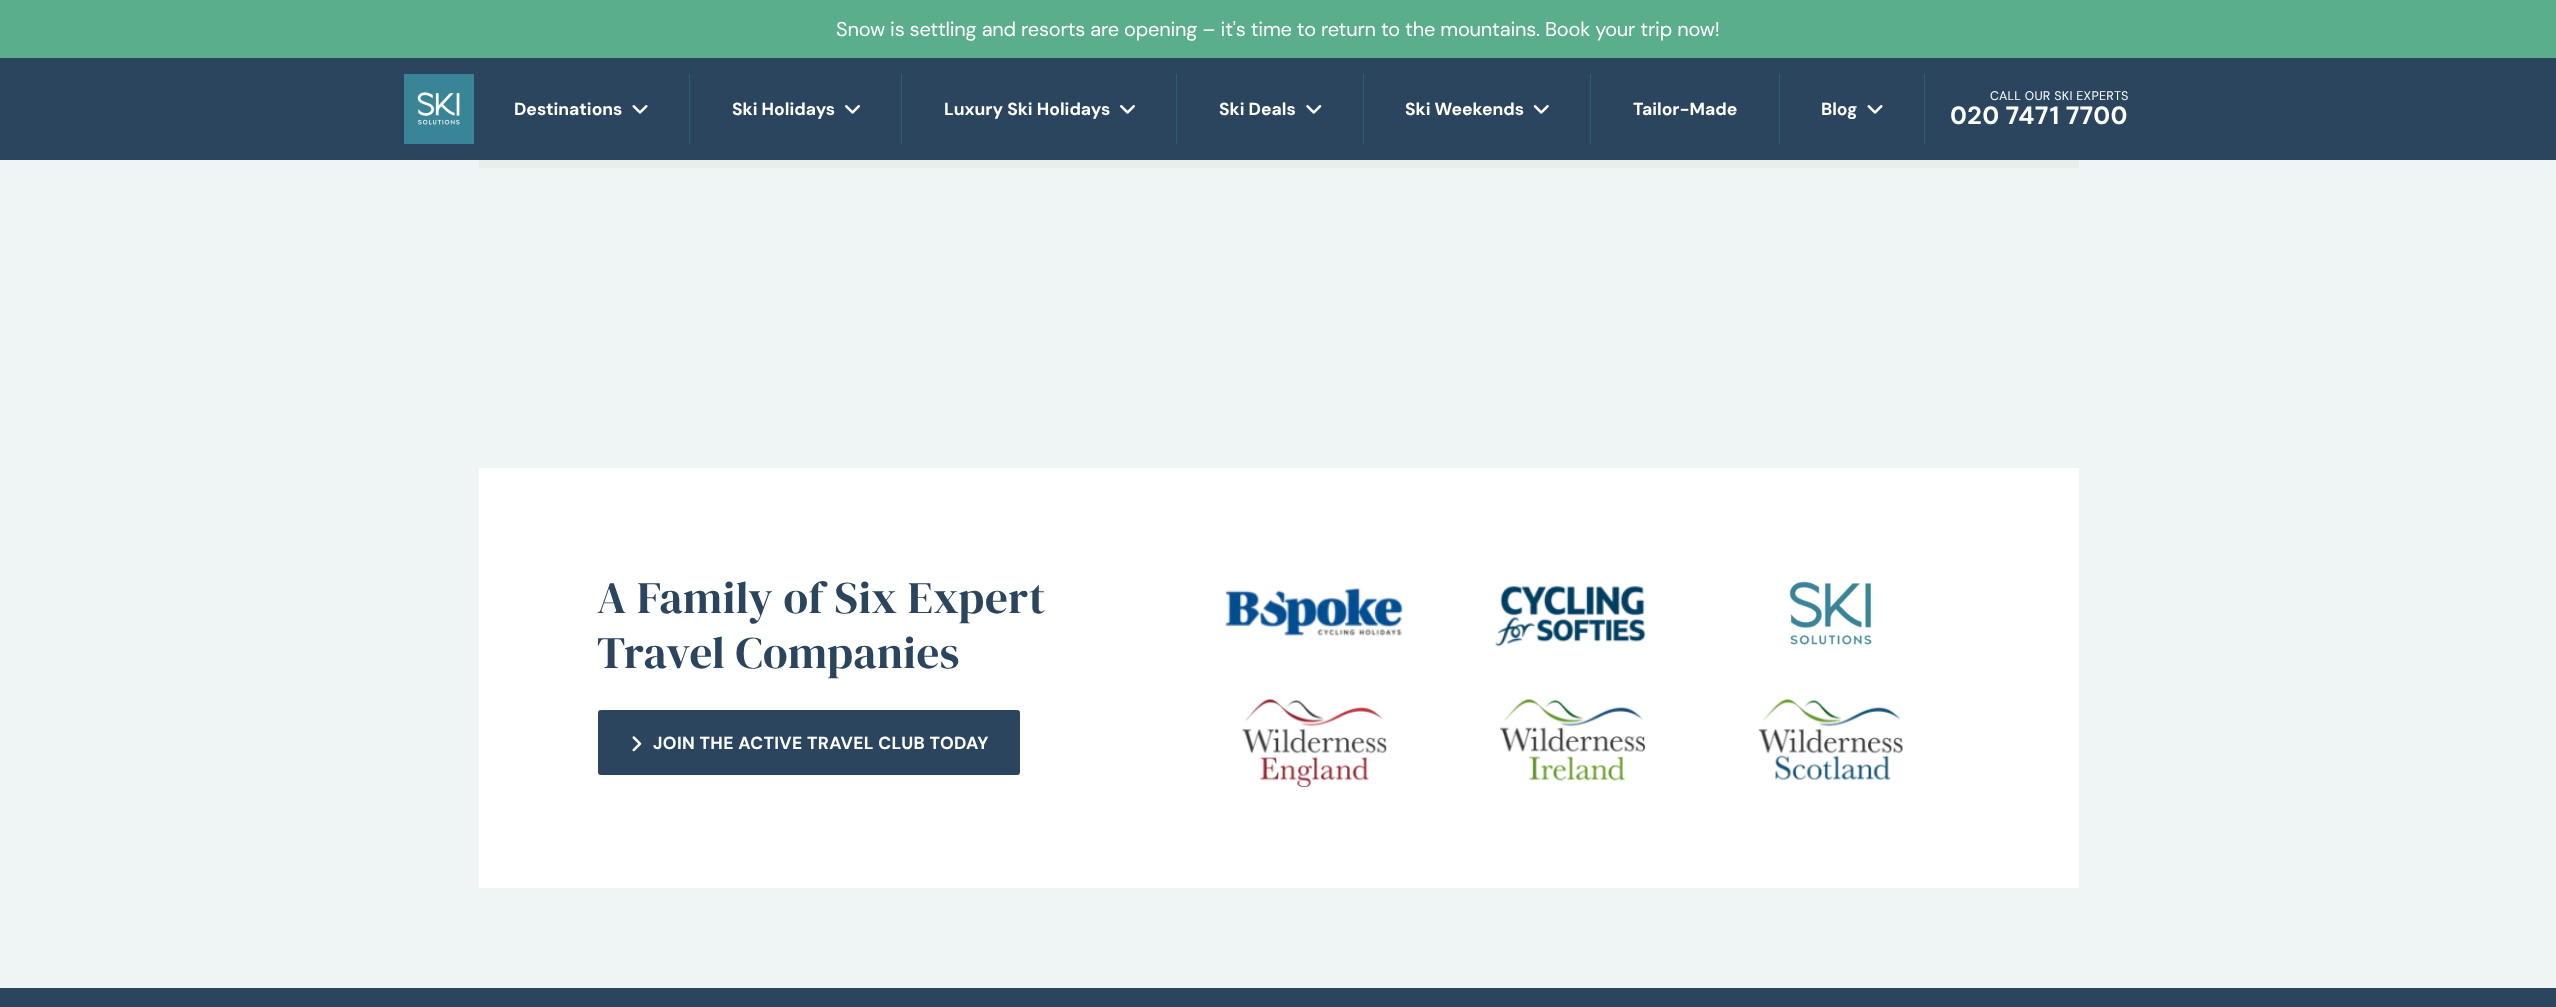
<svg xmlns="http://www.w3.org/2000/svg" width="2556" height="1007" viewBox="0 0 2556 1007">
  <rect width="100%" height="100%" fill="#eff4f5"/>
  <path d="M0 58h2556v102H0z" fill="#2b455e"/>
  <path d="M0 0h2556v58H0z" fill="#5aae8c"/>
  <image x="404" y="74" width="70" height="70" href="img/1.png"/>
  <path d="M689 74h1v70H689z" fill="#305f73"/>
  <image x="632" y="105" width="16" height="9" href="img/2.png"/>
  <path d="M901 74h1v70H901z" fill="#305f73"/>
  <image x="845" y="105" width="15" height="9" href="img/3.png"/>
  <path d="M1176 74h1v70H1176z" fill="#305f73"/>
  <image x="1120" y="105" width="15" height="9" href="img/3.png"/>
  <path d="M1363 74h1v70H1363z" fill="#305f73"/>
  <image x="1306" y="105" width="16" height="9" href="img/4.png"/>
  <path d="M1590 74h1v70H1590z" fill="#305f73"/>
  <image x="1533" y="105" width="16" height="9" href="img/5.png"/>
  <path d="M1779 74h1v70H1779z" fill="#305f73"/>
  <path d="M1924 74h1v70H1924z" fill="#305f73"/>
  <image x="1867" y="105" width="16" height="9" href="img/2.png"/>
  <path d="M479 160h1600v8H479z" fill="#e8eeeb"/>
  <path d="M479 468h1600v420H479z" fill="#fff"/>
  <rect x="598.5" y="710.5" width="421" height="64" rx="2" fill="#2b455e" stroke="#2b455e"/>
  <image x="632" y="736" width="10" height="16" href="img/6.png"/>
  <image x="1225" y="588" width="178" height="48" href="img/7.png"/>
  <image x="1495" y="585" width="151" height="62" href="img/8.png"/>
  <image x="1789" y="581" width="83" height="64" href="img/9.png"/>
  <image x="1242" y="699" width="145" height="88" href="img/10.png"/>
  <image x="1500" y="699" width="145" height="83" href="img/11.png"/>
  <image x="1758" y="699" width="145" height="82" href="img/12.png"/>
  <path d="M0 988h2556v19H0z" fill="#2b455e"/>
  <text x="836" y="36" font-family="'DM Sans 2'" font-size="20" letter-spacing="-0.2" fill="#fff">Snow is settling and resorts are opening – it's time to return to the mountains. Book your trip now!</text>
  <g font-family="DM Sans" font-size="17.5" font-weight="bold" fill="#fff">
    <text x="514" y="115">Destinations</text>
    <text x="732" y="115">Ski Holidays</text>
    <text x="944" y="115">Luxury Ski Holidays</text>
    <text x="1219" y="115">Ski Deals</text>
    <text x="1405" y="115">Ski Weekends</text>
    <text x="1633" y="115">Tailor-Made</text>
    <text x="1821" y="115">Blog</text>
  </g>
  <text x="1990" y="100" font-family="DM Sans" font-size="12.5" letter-spacing="0.25" fill="#fff">CALL OUR SKI EXPERTS</text>
  <text x="1950" y="124" font-family="'DM Sans 2'" font-size="25" font-weight="bold" letter-spacing="0.25" fill="#fff">020 7471 7700</text>
  <g font-family="DM Serif Display" font-size="45" letter-spacing="0.45" fill="#2b455e">
    <text x="597" y="613">A Family of Six Expert</text>
    <text x="597" y="668">Travel Companies</text>
  </g>
  <text x="653" y="749" font-family="DM Sans" font-size="17.5" font-weight="bold" letter-spacing="0.35" fill="#fff">JOIN THE ACTIVE TRAVEL CLUB TODAY</text>
</svg>
